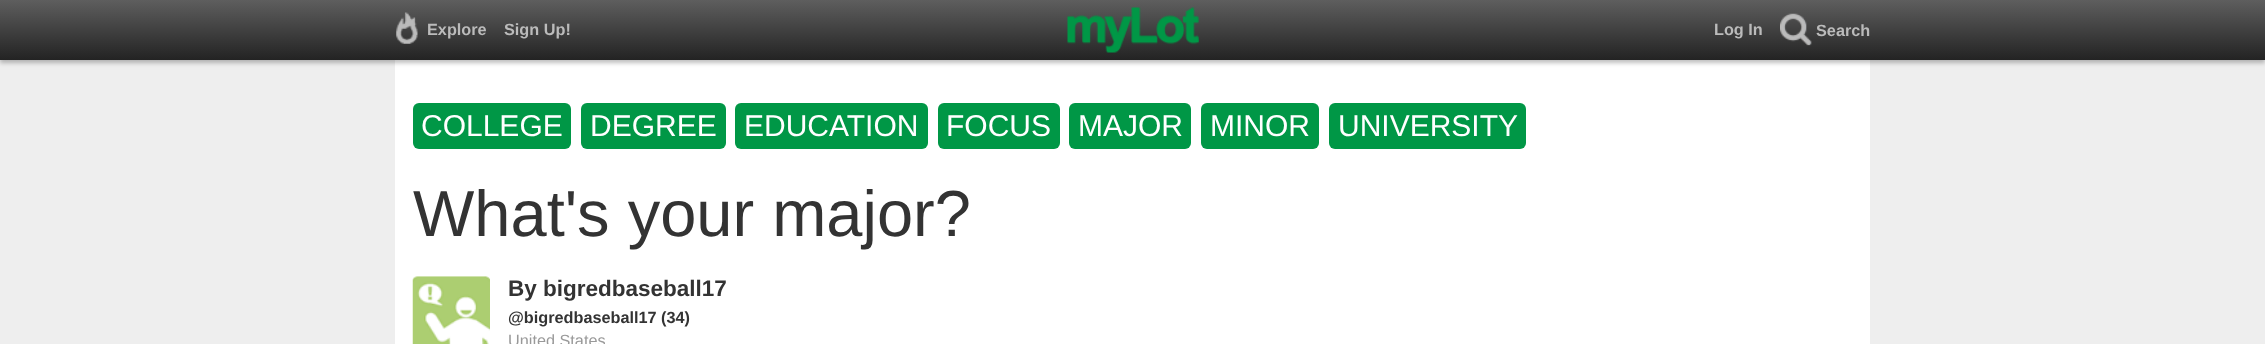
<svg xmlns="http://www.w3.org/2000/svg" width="2265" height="344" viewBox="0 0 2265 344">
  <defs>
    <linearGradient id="g1" gradientUnits="userSpaceOnUse" x1="1133" y1="0" x2="1133" y2="60"><stop offset="0" stop-color="#5e5e5e"/><stop offset="1" stop-color="#232323"/></linearGradient>
  </defs>
  <rect width="100%" height="100%" fill="#eee"/>
  <path d="M395 60h1475v284H395z" fill="#fff"/>
  <path d="M0 3h2265v60H0z" fill="#00000040" filter="blur(2px)"/>
  <path d="M0 0h2265v60H0z" fill="url(#g1)"/>
  <image x="396" y="12" width="22" height="32" href="img/1.png"/>
  <image x="1067" y="7" width="132" height="46" href="img/2.png"/>
  <image x="1780" y="13" width="32" height="33" href="img/3.png"/>
  <rect x="413" y="103" width="158" height="46" rx="6" fill="#009746"/>
  <rect x="581" y="103" width="145" height="46" rx="6" fill="#009746"/>
  <rect x="735" y="103" width="193" height="46" rx="6" fill="#009746"/>
  <rect x="938" y="103" width="122" height="46" rx="6" fill="#009746"/>
  <rect x="1069" y="103" width="122" height="46" rx="6" fill="#009746"/>
  <rect x="1201" y="103" width="118" height="46" rx="6" fill="#009746"/>
  <rect x="1329" y="103" width="197" height="46" rx="6" fill="#009746"/>
  <image x="412" y="276" width="78" height="68" href="img/4.png"/>
  <g font-family="Liberation Sans" font-size="16.25" font-weight="bold" fill="#bbb">
    <text x="427" y="35">Explore</text>
    <text x="504" y="35">Sign Up!</text>
    <text x="1714" y="35">Log In</text>
    <text x="1816" y="36">Search</text>
  </g>
  <g font-family="Liberation Sans" font-size="30" fill="#fff">
    <text x="421" y="136">COLLEGE</text>
    <text x="590" y="136">DEGREE</text>
    <text x="744" y="136">EDUCATION</text>
    <text x="946" y="136">FOCUS</text>
    <text x="1078" y="136">MAJOR</text>
    <text x="1210" y="136">MINOR</text>
    <text x="1338" y="136">UNIVERSITY</text>
  </g>
  <text x="413" y="236" font-family="Liberation Sans" font-size="65" fill="#333">What's your major?</text>
  <text x="508" y="296" font-family="Liberation Sans" font-size="22.5" font-weight="bold" fill="#333">By bigredbaseball17</text>
  <text x="508" y="323" font-family="Liberation Sans" font-size="16.25" font-weight="bold" fill="#333">@bigredbaseball17 (34)</text>
  <text x="508" y="346" font-family="Liberation Sans" font-size="16.25" fill="#999">United States</text>
</svg>
